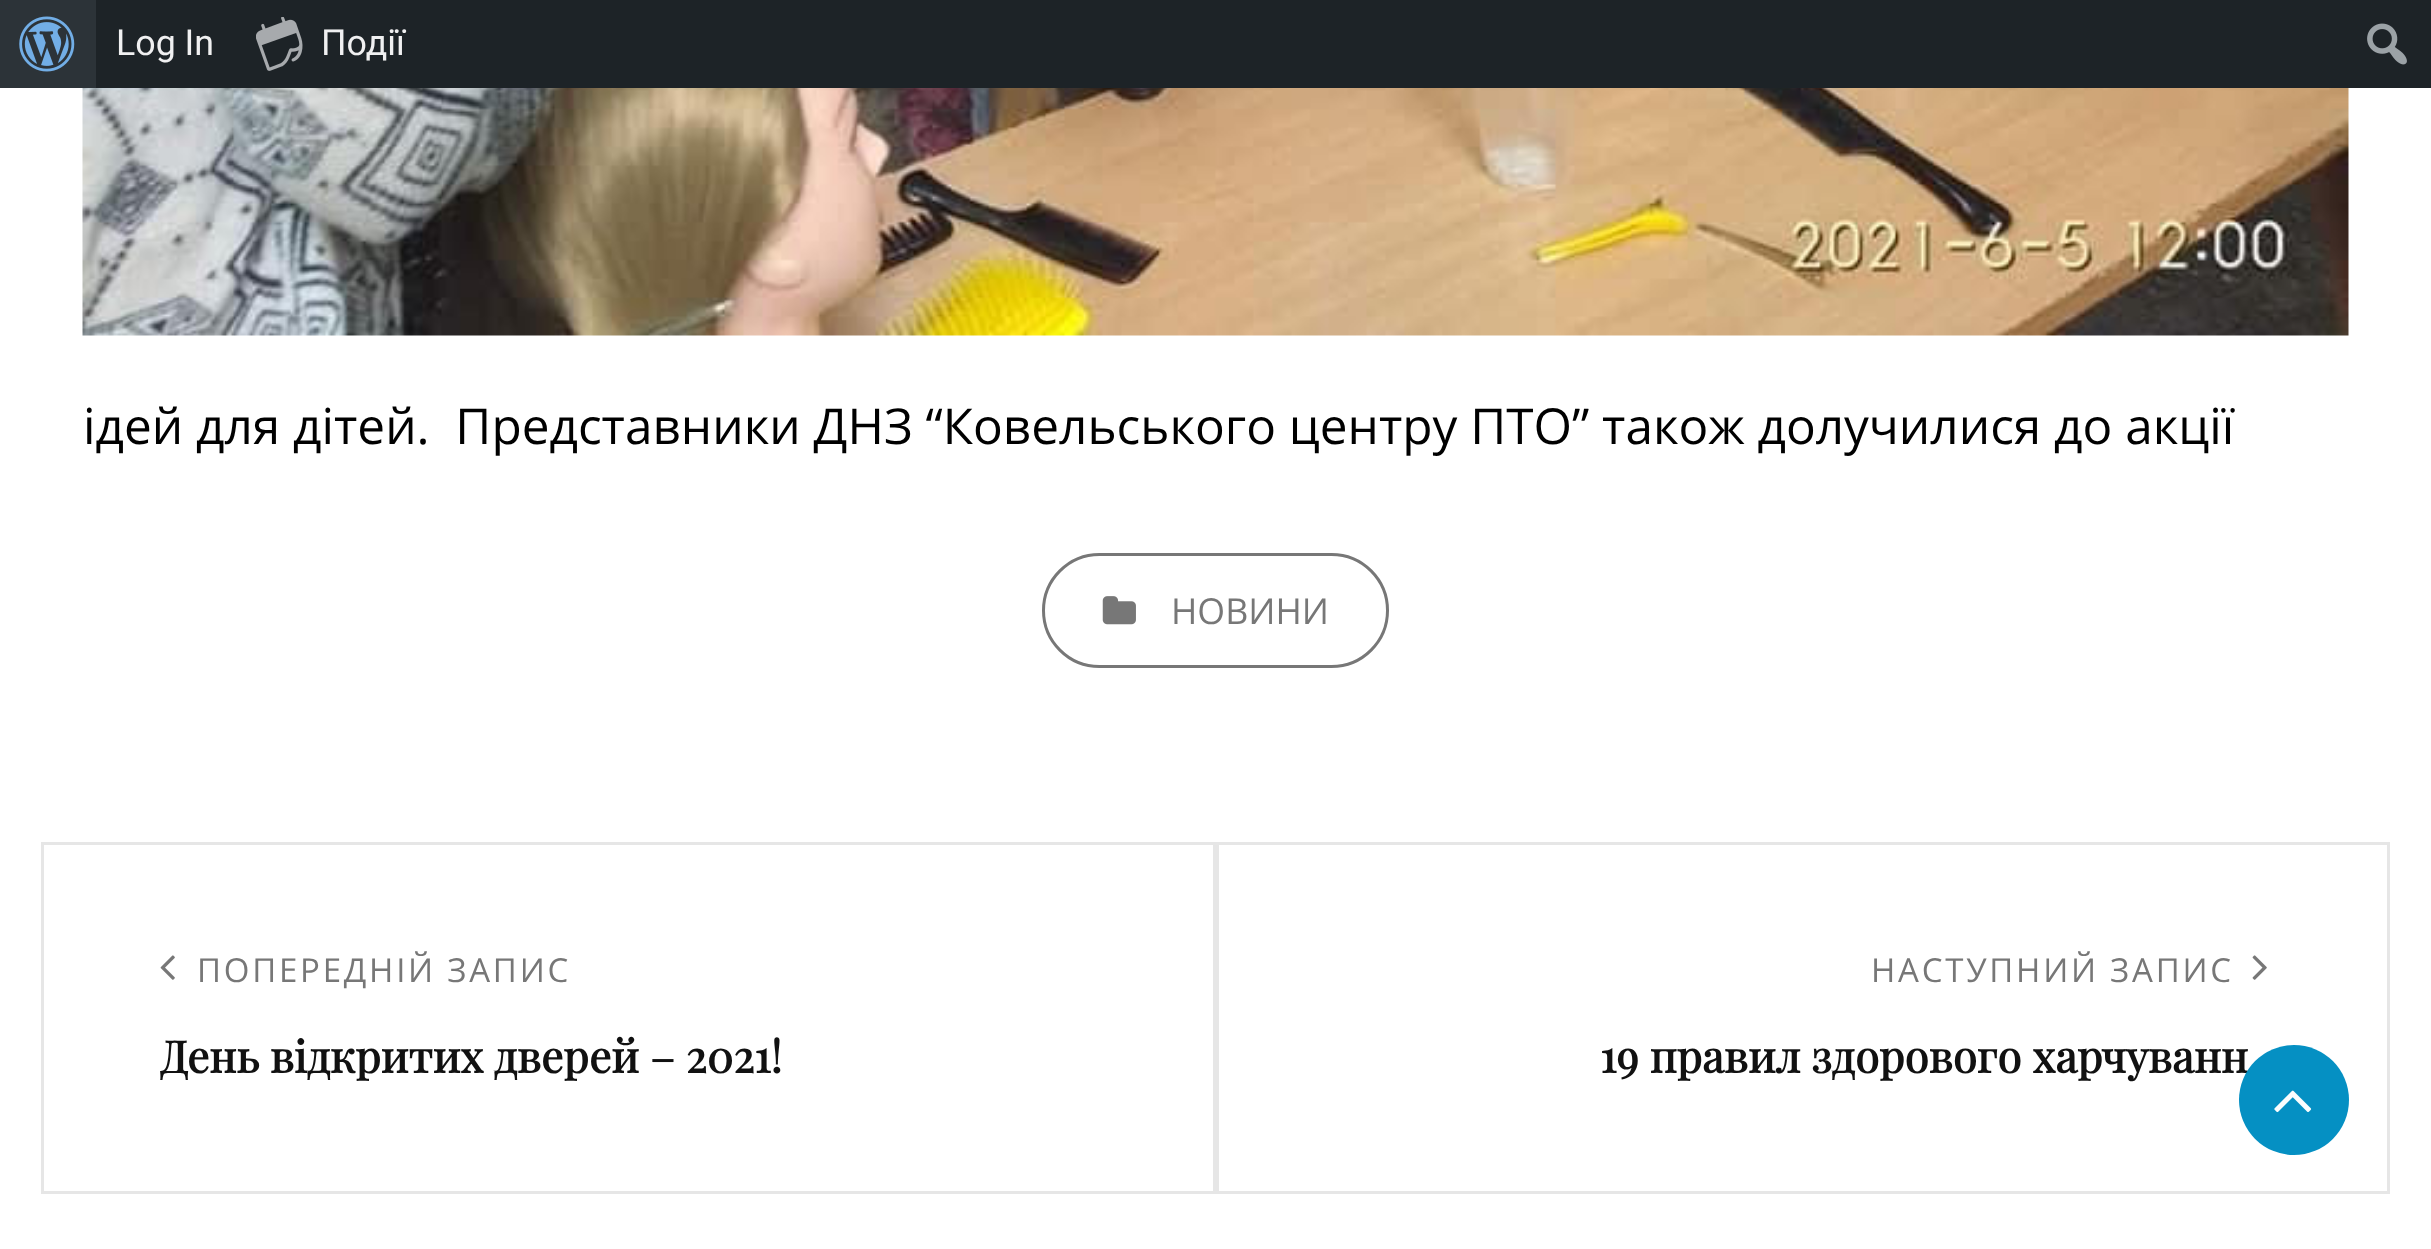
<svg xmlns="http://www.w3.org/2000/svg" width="2431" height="1249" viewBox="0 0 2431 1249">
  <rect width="100%" height="100%" fill="#fff"/>
  <path d="M96 0h2335v88H96z" fill="#1d2327"/>
  <path d="M0 0h96v88H0z" fill="#2c3338"/>
  <image x="19" y="16" width="56" height="56" href="img/1.png"/>
  <image x="256" y="17" width="47" height="54" href="img/2.png"/>
  <image x="2367" y="23" width="40" height="42" href="img/3.png"/>
  <image x="82" y="88" width="2267" height="248" href="img/4.png"/>
  <rect x="1043.5" y="554.5" width="344" height="112" rx="56" fill="none" stroke="#777" stroke-width="3"/>
  <image x="1102" y="596" width="34" height="29" href="img/5.png"/>
  <path d="M42.5 843.5h1172v349H42.5z" fill="none" stroke="#e6e6e6" stroke-width="3"/>
  <image x="160" y="955" width="15" height="25" href="img/6.png"/>
  <path d="M1217.5 843.5h1171v349H1217.5z" fill="none" stroke="#e6e6e6" stroke-width="3"/>
  <image x="2252" y="955" width="15" height="25" href="img/7.png"/>
  <g font-family="Roboto" font-size="35.75" fill="#f0f0f1">
    <text x="116" y="55">Log In</text>
    <text x="321" y="55">Події</text>
  </g>
  <text x="83" y="444" font-family="Open Sans" font-size="49.5" fill="#000" xml:space="preserve">ідей для дітей.  Представники ДНЗ “Ковельського центру ПТО” також долучилися до акції</text>
  <text x="1171" y="624" font-family="Open Sans" font-size="35.75" fill="#777">НОВИНИ</text>
  <text x="197" y="982" font-family="Open Sans" font-size="33" letter-spacing="2.75" fill="#777">ПОПЕРЕДНІЙ ЗАПИС</text>
  <text x="160" y="1073" font-family="Playfair Display" font-size="44" font-weight="bold" fill="#111">День відкритих дверей – 2021!</text>
  <text x="1871" y="982" font-family="Open Sans" font-size="33" letter-spacing="2.75" fill="#777">НАСТУПНИЙ ЗАПИС</text>
  <text x="1600" y="1073" font-family="Playfair Display" font-size="44" font-weight="bold" fill="#111">19 правил здорового харчуванн</text>
  <circle cx="2294" cy="1100" r="55" fill="#008ec2fa"/>
  <image x="2274" y="1090" width="38" height="23" href="img/8.png"/>
</svg>
